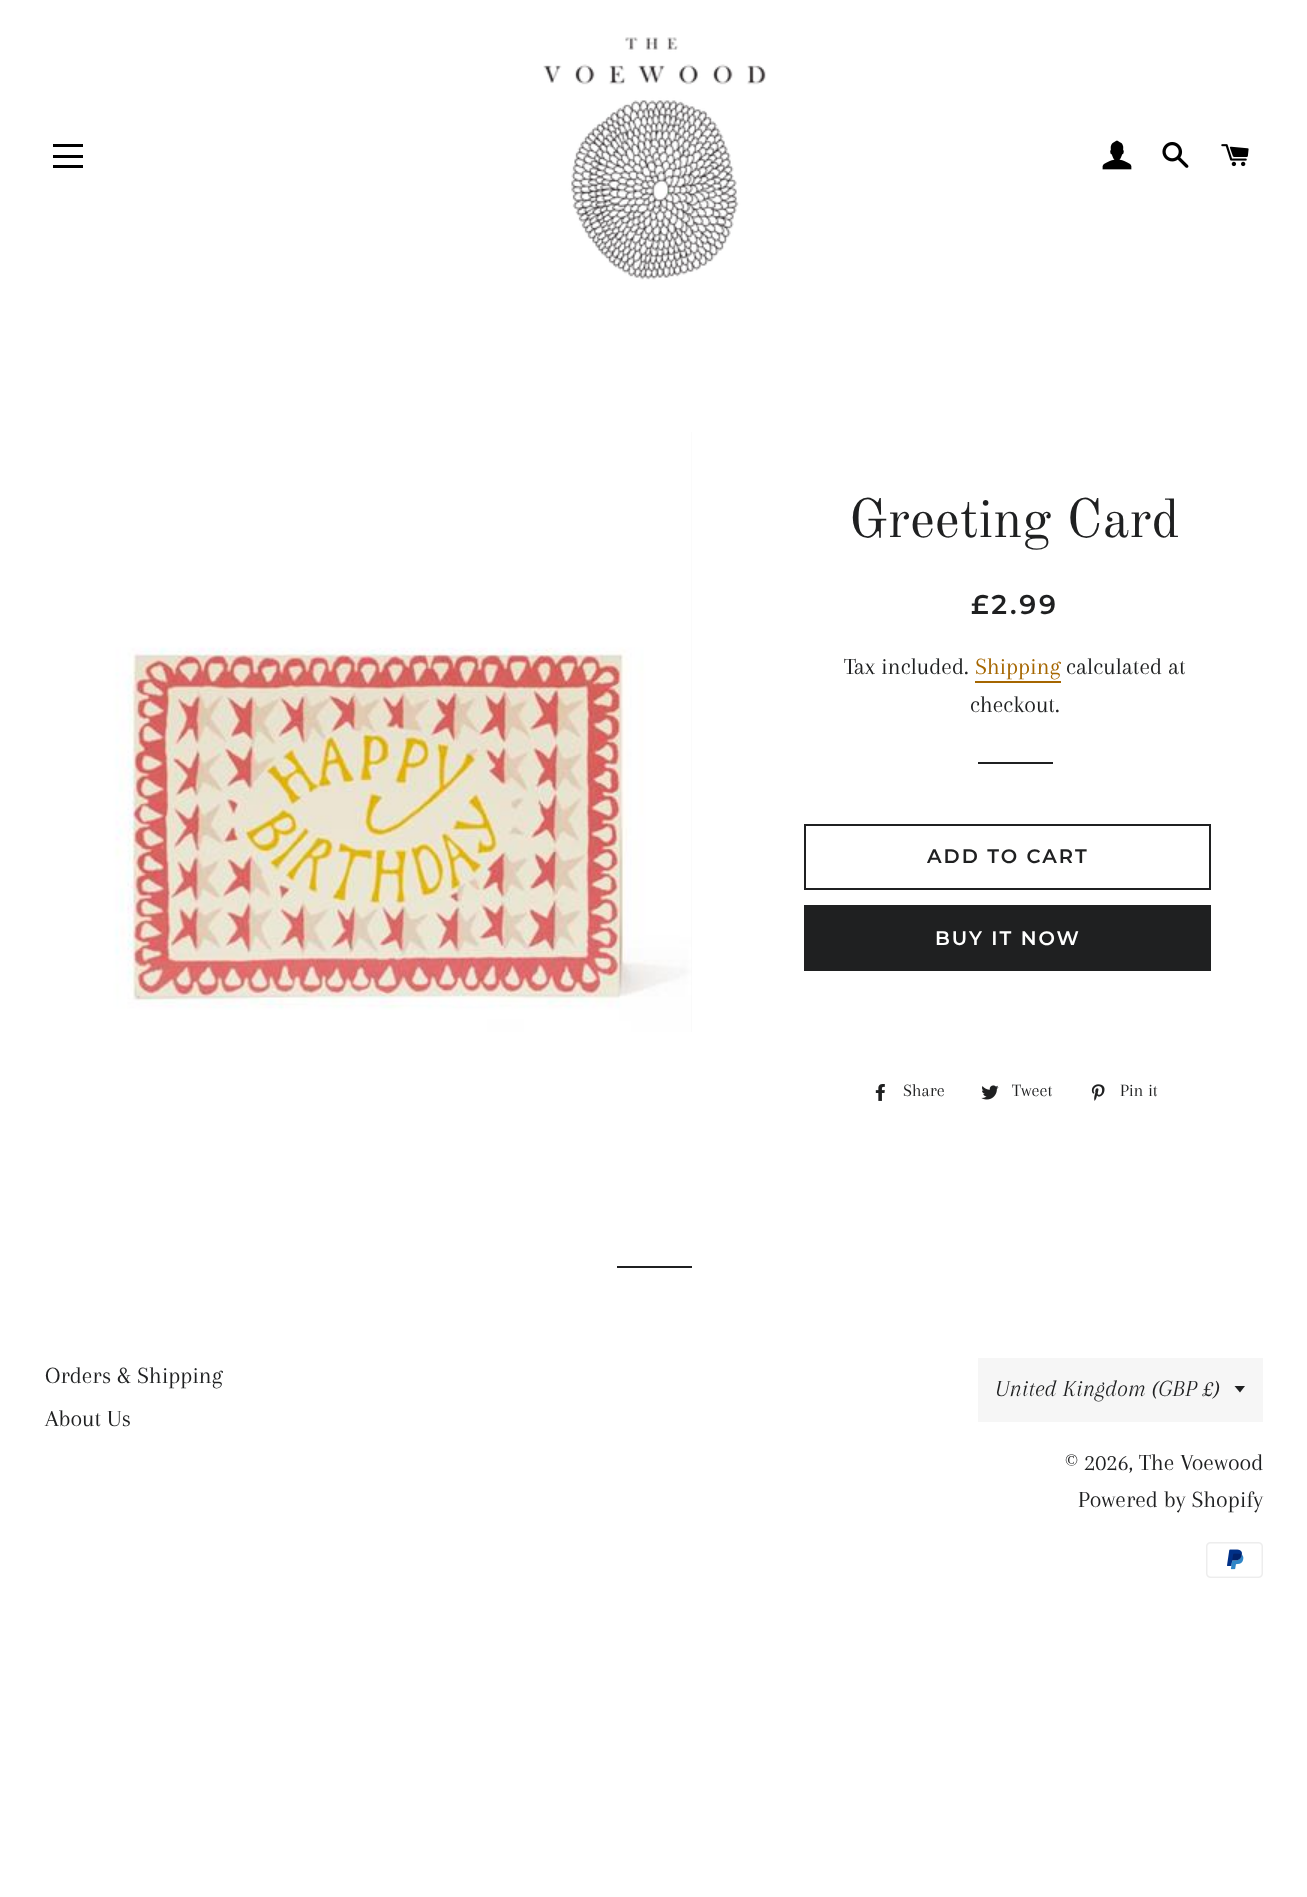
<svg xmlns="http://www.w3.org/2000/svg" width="1307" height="1897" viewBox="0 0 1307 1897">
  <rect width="100%" height="100%" fill="#fff"/>
  <path d="M53 144h30v3H53z" fill="#000"/>
  <path d="M53 155h30v3H53z" fill="#000"/>
  <path d="M53 165h30v3H53z" fill="#000"/>
  <image x="543" y="37" width="223" height="243" href="img/1.png"/>
  <image x="1102" y="140" width="30" height="30" href="img/2.png"/>
  <image x="1162" y="142" width="27" height="26" href="img/3.png"/>
  <image x="1221" y="144" width="28" height="23" href="img/4.png"/>
  <path d="M691 432h1v600H691z" fill="#f6f6f6"/>
  <image x="92" y="432" width="600" height="600" href="img/5.png"/>
  <path d="M975 681h86v2H975z" fill="#a56600"/>
  <path d="M978 762h75v2H978z" fill="#1f2021"/>
  <path d="M805 825h405v64H805z" fill="none" stroke="#1f2021" stroke-width="2"/>
  <path d="M804 905h407v66H804z" fill="#1f2021"/>
  <image x="875" y="1084" width="10" height="17" href="img/6.png"/>
  <image x="981" y="1085" width="18" height="15" href="img/7.png"/>
  <image x="1091" y="1084" width="14" height="17" href="img/8.png"/>
  <path d="M617 1266h75v2H617z" fill="#1f2021"/>
  <path d="M978 1358h285v64H978z" fill="#f6f6f6"/>
  <path d="M1234.5 1386L1240 1392.5L1245 1386Z" fill="#1f2021"/>
  <image x="1206" y="1542" width="57" height="36" href="img/9.png"/>
  <text x="849" y="537" font-family="Old Standard TT" font-size="54" fill="#1f2021">Greeting Card</text>
  <text x="971" y="614" font-family="Montserrat" font-size="27" font-weight="600" letter-spacing="2.75" fill="#1f2021">£2.99</text>
  <text x="844" y="674" font-family="Arapey" font-size="24" fill="#1f2021">Tax included.</text>
  <text x="975" y="674" font-family="Arapey" font-size="24" fill="#a56600">Shipping</text>
  <g font-family="Arapey" font-size="24" fill="#1f2021">
    <text x="1066" y="674">calculated at</text>
    <text x="970" y="712">checkout.</text>
  </g>
  <text x="927" y="863" font-family="Montserrat" font-size="19.5" font-weight="600" letter-spacing="2" fill="#1f2021">ADD TO CART</text>
  <text x="935" y="945" font-family="Montserrat" font-size="19.5" font-weight="600" letter-spacing="2" fill="#fff">BUY IT NOW</text>
  <g font-family="Arapey" font-size="18" fill="#1f2021">
    <text x="903" y="1096">Share</text>
    <text x="1012" y="1096">Tweet</text>
    <text x="1120" y="1096">Pin it</text>
  </g>
  <g font-family="Arapey" font-size="24" fill="#1f2021">
    <text x="45" y="1383">Orders &amp; Shipping</text>
    <text x="45" y="1426">About Us</text>
  </g>
  <text x="995" y="1396" font-family="Arapey" font-size="24" font-style="italic" fill="#1f2021">United Kingdom (GBP £)</text>
  <g font-family="Arapey" font-size="24" fill="#1f2021">
    <text x="1065" y="1470">© 2026, The Voewood</text>
    <text x="1078" y="1507">Powered by Shopify</text>
  </g>
</svg>
